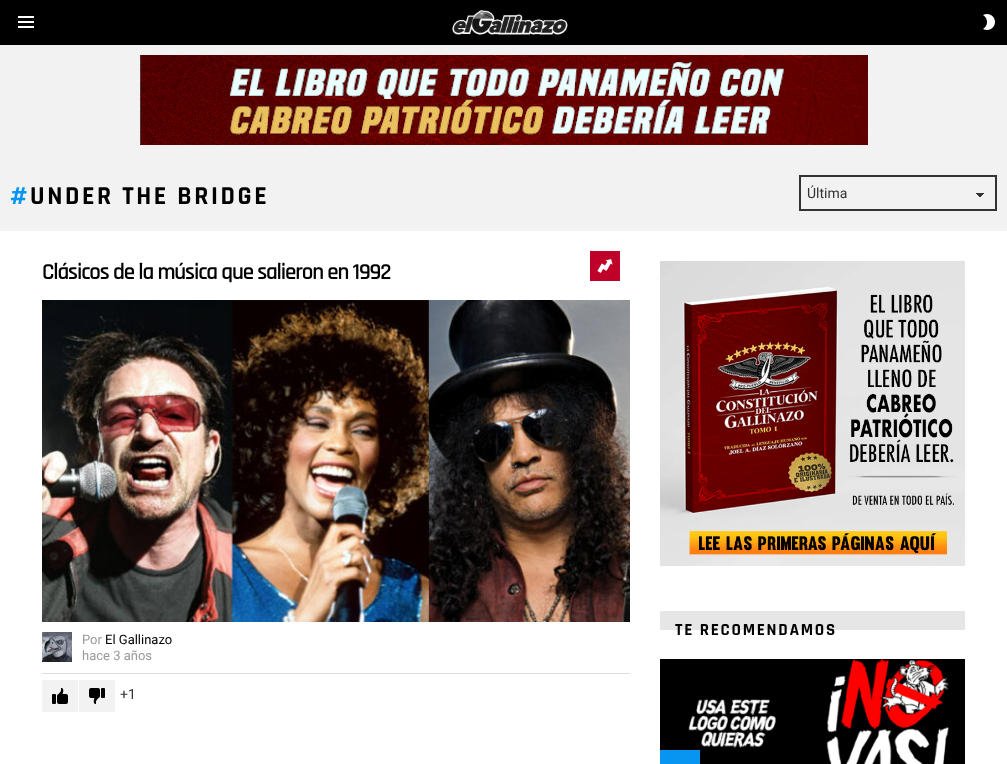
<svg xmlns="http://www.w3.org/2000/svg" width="1007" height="764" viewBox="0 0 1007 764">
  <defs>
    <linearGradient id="g1" gradientUnits="userSpaceOnUse" x1="980" y1="193" x2="985" y2="197"><stop offset="0.5" stop-color="#333"/><stop offset="0.5" stop-color="#f2f2f2"/></linearGradient>
    <linearGradient id="g2" gradientUnits="userSpaceOnUse" x1="975" y1="197" x2="980" y2="193"><stop offset="0.5" stop-color="#f2f2f2"/><stop offset="0.5" stop-color="#333"/></linearGradient>
  </defs>
  <rect width="100%" height="100%" fill="#fff"/>
  <path d="M0 0h1007v45H0z" fill="#000"/>
  <image x="18" y="16" width="16" height="12" href="img/1.png"/>
  <image x="452" y="10" width="116" height="25" href="img/2.png"/>
  <image x="983" y="14" width="12" height="16" href="img/3.png"/>
  <path d="M0 45h1007v186H0z" fill="#f2f2f2"/>
  <image x="140" y="55" width="728" height="90" href="img/4.png"/>
  <path d="M980 193h5v4H980z" fill="url(#g1)"/>
  <path d="M975 193h5v4H975z" fill="url(#g2)"/>
  <path d="M800 176h196v34H800z" fill="none" stroke="#333" stroke-width="2"/>
  <path d="M590 251h30v30H590z" fill="#bf0029"/>
  <image x="597" y="259" width="16" height="14" href="img/5.png"/>
  <image x="42" y="300" width="588" height="322" href="img/6.png"/>
  <image x="42" y="632" width="30" height="30" href="img/7.png"/>
  <path d="M42 673h588v1H42z" fill="#ddd"/>
  <path d="M42 680h36v32H42z" fill="#f2f2f2"/>
  <image x="52" y="688" width="16" height="16" href="img/8.png"/>
  <path d="M79 680h36v32H79z" fill="#f2f2f2"/>
  <image x="89" y="688" width="16" height="16" href="img/9.png"/>
  <image x="660" y="261" width="305" height="305" href="img/10.png"/>
  <path d="M660 611h305v19H660z" fill="#e6e6e6"/>
  <image x="660" y="659" width="305" height="105" href="img/11.png"/>
  <path d="M660 750h40v14H660z" fill="#0894f1"/>
  <text x="10" y="204" font-family="Rajdhani" font-size="26" font-weight="bold" letter-spacing="2.6" fill="#0894f1">#</text>
  <text x="30" y="204" font-family="Rajdhani" font-size="26" font-weight="bold" letter-spacing="2.6" fill="#000">UNDER THE BRIDGE</text>
  <text x="807" y="198" font-family="Roboto" font-size="14" fill="#333">Última</text>
  <text x="42" y="279" font-family="Rajdhani" font-size="23" font-weight="600" letter-spacing="-1.15" fill="#000">Clásicos de la música que salieron en 1992</text>
  <text x="82" y="644" font-family="Roboto" font-size="13" fill="#999">Por</text>
  <text x="105" y="644" font-family="Roboto" font-size="13" fill="#000">El Gallinazo</text>
  <text x="82" y="660" font-family="Roboto" font-size="13" fill="#999">hace 3 años</text>
  <text x="120" y="699" font-family="Roboto" font-size="14" fill="#333">+1</text>
  <text x="675" y="635" font-family="Rajdhani" font-size="17" font-weight="bold" letter-spacing="1.75" fill="#000">TE RECOMENDAMOS</text>
</svg>
